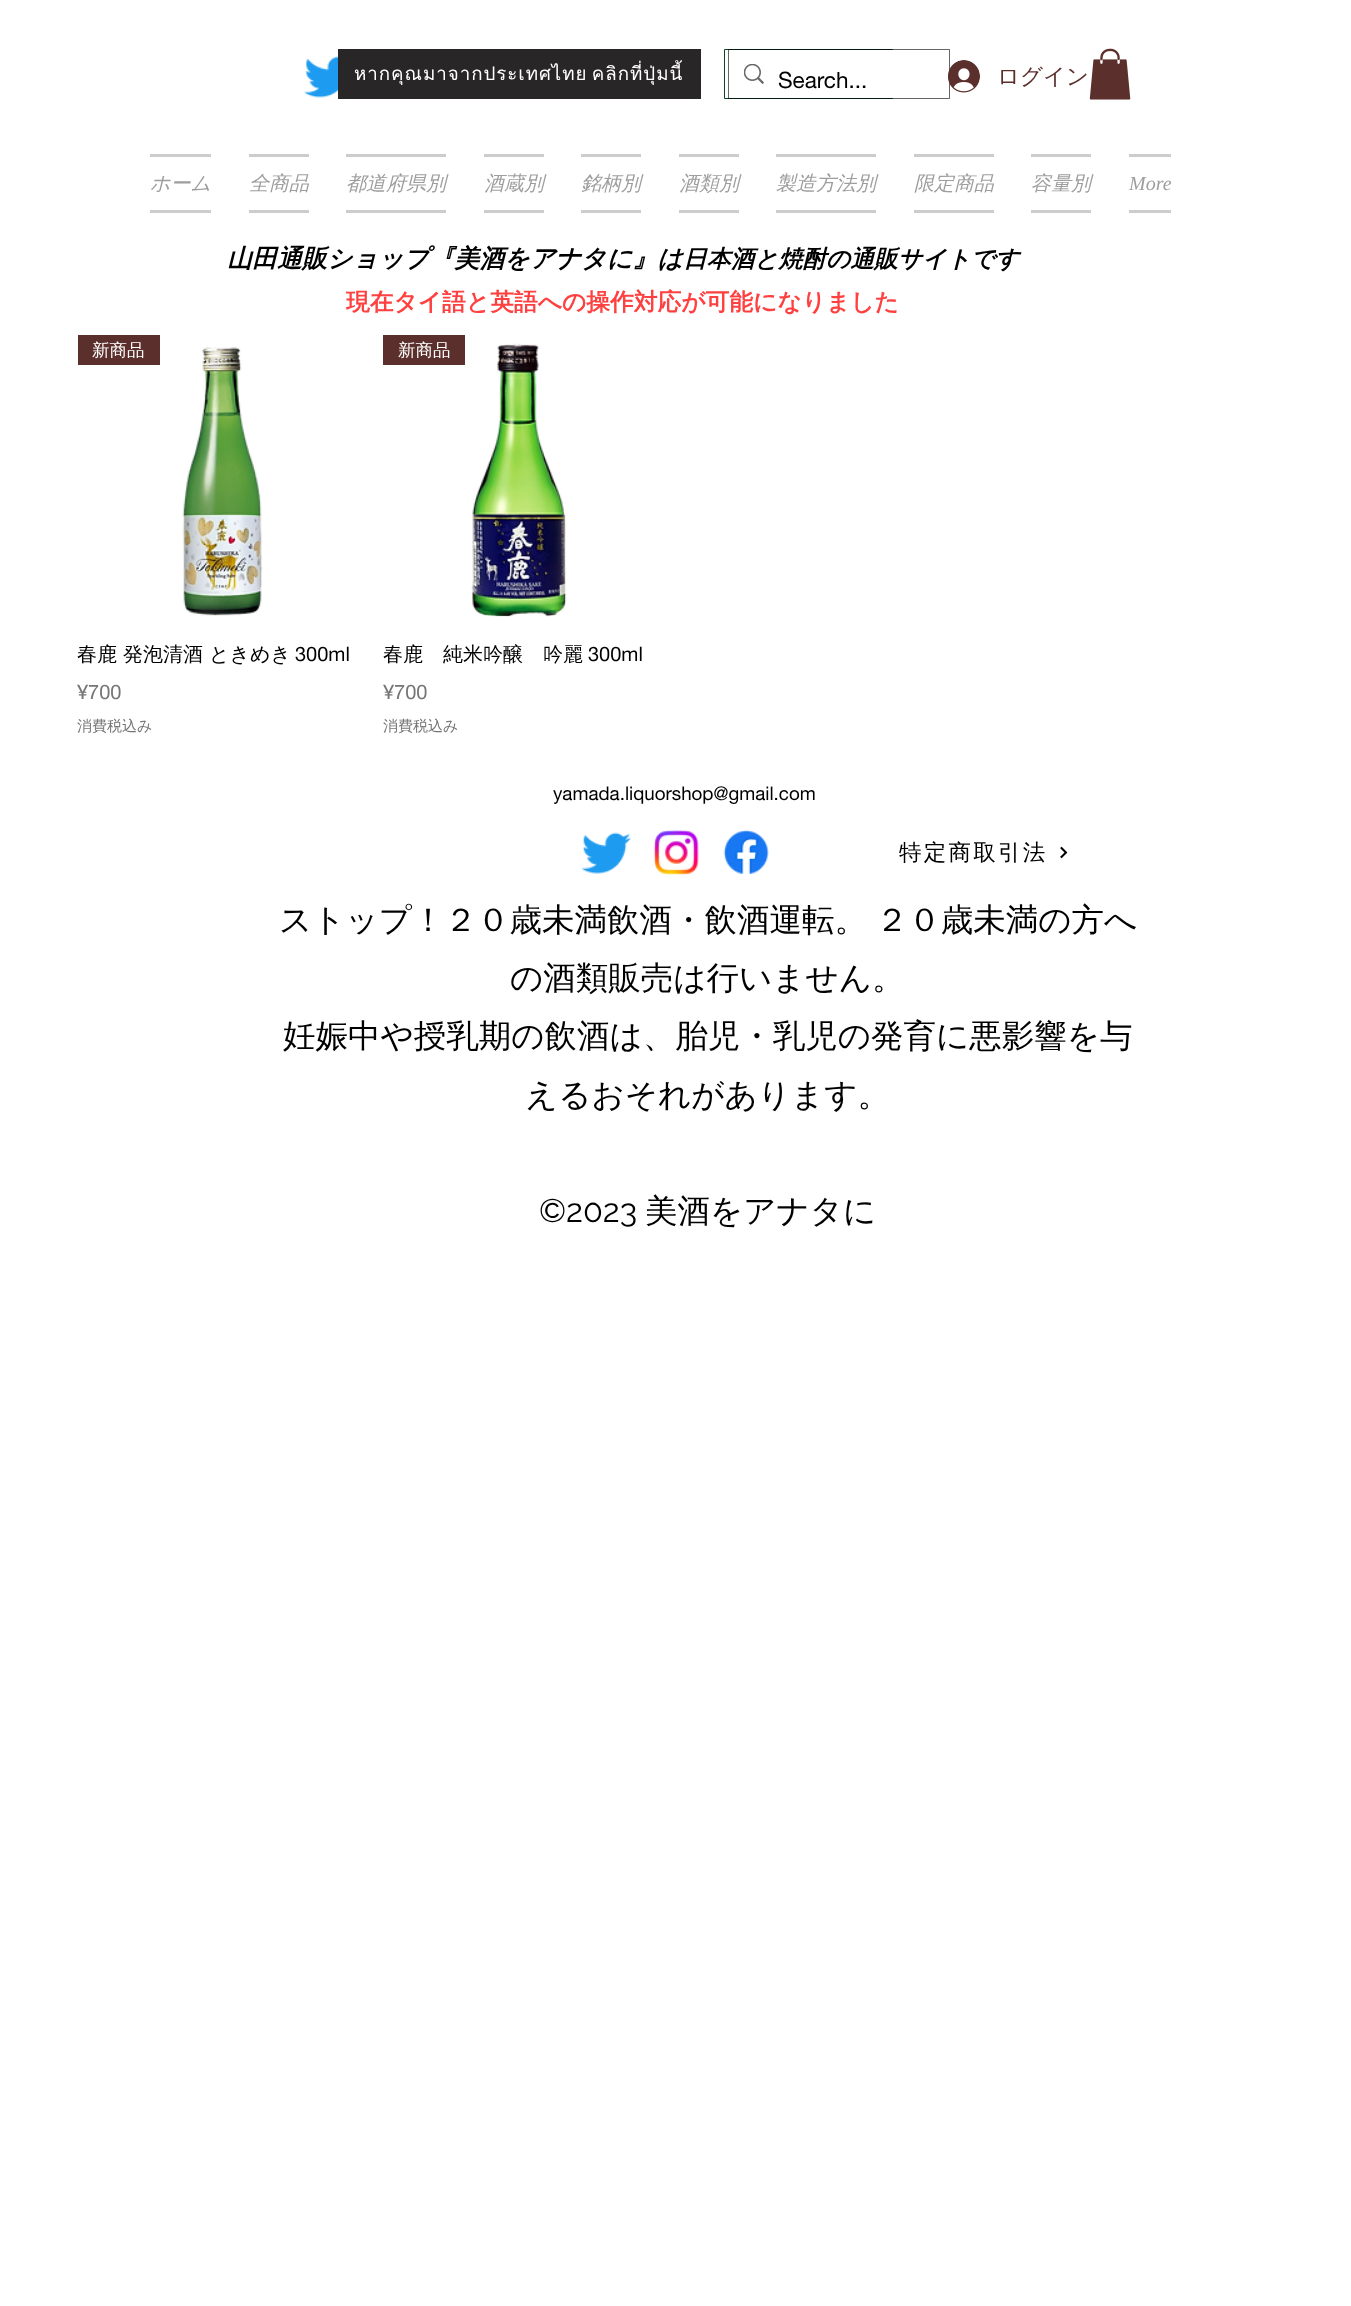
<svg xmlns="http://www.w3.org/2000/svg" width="1351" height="2306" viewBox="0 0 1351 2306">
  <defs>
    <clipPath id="clip1"><path d="M354 59h330v30H354z"/></clipPath>
  </defs>
  <rect width="100%" height="100%" fill="#fff"/>
  <image x="304" y="56" width="34" height="42" href="img/1.png"/>
  <path d="M338 49h363v50H338z" fill="#282626"/>
  <path d="M724.5 49.5h168v49H724.5z" fill="none" stroke="#0c4426"/>
  <path d="M728.5 49.5h221v49H728.5z" fill="none" stroke="#00000099"/>
  <path d="M892 50h1v48H892z" fill="#fff"/>
  <image x="744" y="64" width="20" height="20" href="img/2.png"/>
  <image x="948" y="60" width="32" height="33" href="img/3.png"/>
  <image x="1089" y="48" width="42" height="52" href="img/4.png"/>
  <path d="M150 154h61v3H150z" fill="#ccc"/>
  <path d="M150 210h61v3H150z" fill="#ccc"/>
  <path d="M249 154h60v3H249z" fill="#ccc"/>
  <path d="M249 210h60v3H249z" fill="#ccc"/>
  <path d="M346 154h100v3H346z" fill="#ccc"/>
  <path d="M346 210h100v3H346z" fill="#ccc"/>
  <path d="M484 154h60v3H484z" fill="#ccc"/>
  <path d="M484 210h60v3H484z" fill="#ccc"/>
  <path d="M581 154h60v3H581z" fill="#ccc"/>
  <path d="M581 210h60v3H581z" fill="#ccc"/>
  <path d="M679 154h60v3H679z" fill="#ccc"/>
  <path d="M679 210h60v3H679z" fill="#ccc"/>
  <path d="M776 154h100v3H776z" fill="#ccc"/>
  <path d="M776 210h100v3H776z" fill="#ccc"/>
  <path d="M914 154h80v3H914z" fill="#ccc"/>
  <path d="M914 210h80v3H914z" fill="#ccc"/>
  <path d="M1031 154h60v3H1031z" fill="#ccc"/>
  <path d="M1031 210h60v3H1031z" fill="#ccc"/>
  <path d="M1129 154h42v3H1129z" fill="#ccc"/>
  <path d="M1129 210h42v3H1129z" fill="#ccc"/>
  <path d="M78 335h82v30H78z" fill="#5b2f2c"/>
  <image x="182" y="347" width="81" height="269" href="img/5.png"/>
  <path d="M383 335h82v30H383z" fill="#5b2f2c"/>
  <image x="471" y="343" width="96" height="274" href="img/6.png"/>
  <image x="581" y="832" width="51" height="42" href="img/7.png"/>
  <image x="653" y="830" width="46" height="45" href="img/8.png"/>
  <image x="723" y="830" width="46" height="45" href="img/9.png"/>
  <image x="1060" y="846" width="8" height="13" href="img/10.png"/>
  <g clip-path="url(#clip1)">
    <text x="354" y="80" word-spacing="-3" font-family="Loma" font-size="18.75" letter-spacing="0.95" fill="#fff">หากคุณมาจากประเทศไทย คลิกที่ปุ่มนี้</text>
  </g>
  <text x="778" y="88" font-family="helvetica neue" font-size="22.5" fill="#000">Search...</text>
  <text x="997" y="84" font-family="WenQuanYi Zen Hei" font-size="22.5" font-weight="500" fill="#5b2f2c">ログイン</text>
  <g font-family="WenQuanYi Zen Hei" font-size="20" font-weight="500" font-style="italic" fill="#9e9e9e">
    <text x="150" y="190">ホーム</text>
    <text x="249" y="190">全商品</text>
    <text x="346" y="190">都道府県別</text>
    <text x="484" y="190">酒蔵別</text>
    <text x="581" y="190">銘柄別</text>
    <text x="679" y="190">酒類別</text>
    <text x="776" y="190">製造方法別</text>
    <text x="914" y="190">限定商品</text>
    <text x="1031" y="190">容量別</text>
  </g>
  <text x="1129" y="190" font-family="Liberation Serif" font-size="20" font-style="italic" fill="#9e9e9e">More</text>
  <text x="227" y="267" font-family="WenQuanYi Zen Hei" font-size="25" font-weight="bold" font-style="italic" fill="#000">山田通販ショップ『美酒をアナタに』は</text>
  <text x="683" y="267" font-family="WenQuanYi Zen Hei" font-size="23.75" font-weight="bold" font-style="italic" fill="#000">日本酒と焼酎の通販サイトです</text>
  <text x="346" y="310" font-family="WenQuanYi Zen Hei" font-size="23.75" font-weight="bold" fill="#ff4040">現在タイ語と英語への操作対応が可能になりました</text>
  <text x="92" y="356" font-family="WenQuanYi Zen Hei" font-size="17.5" font-weight="500" fill="#fff">新商品</text>
  <text x="77" y="661" font-family="WenQuanYi Zen Hei" font-size="20" font-weight="500" fill="#000">春鹿 発泡清酒 ときめき</text>
  <text x="295" y="661" font-family="helvetica neue" font-size="20" fill="#000">300ml</text>
  <text x="77" y="699" font-family="helvetica neue" font-size="20" fill="#757575">¥700</text>
  <text x="77" y="731" font-family="WenQuanYi Zen Hei" font-size="15" font-weight="500" fill="#757575">消費税込み</text>
  <text x="398" y="356" font-family="WenQuanYi Zen Hei" font-size="17.5" font-weight="500" fill="#fff">新商品</text>
  <text x="383" y="661" font-family="WenQuanYi Zen Hei" font-size="20" font-weight="500" fill="#000">春鹿　純米吟醸　吟麗</text>
  <text x="588" y="661" font-family="helvetica neue" font-size="20" fill="#000">300ml</text>
  <text x="383" y="699" font-family="helvetica neue" font-size="20" fill="#757575">¥700</text>
  <text x="383" y="731" font-family="WenQuanYi Zen Hei" font-size="15" font-weight="500" fill="#757575">消費税込み</text>
  <text x="553" y="800" font-family="helvetica neue" font-size="18.75" fill="#000">yamada.liquorshop@gmail.com</text>
  <text x="899" y="860" font-family="WenQuanYi Zen Hei" font-size="22.5" font-weight="500" letter-spacing="2.25" fill="#000">特定商取引法</text>
  <g font-family="WenQuanYi Zen Hei" font-size="32.5" font-weight="500" fill="#000">
    <text x="279" y="931" word-spacing="-1">ストップ！２０歳未満飲酒・飲酒運転。 ２０歳未満の方へ</text>
    <text x="510" y="989">の酒類販売は行いません。</text>
    <text x="283" y="1047">妊娠中や授乳期の飲酒は、胎児・乳児の発育に悪影響を与</text>
    <text x="525" y="1106">えるおそれがあります。</text>
  </g>
  <text x="539" y="1222" font-family="Raleway" font-size="32.5" fill="#000">©2023</text>
  <text x="645" y="1222" font-family="WenQuanYi Zen Hei" font-size="32.5" font-weight="500" fill="#000">美酒をアナタに</text>
</svg>
